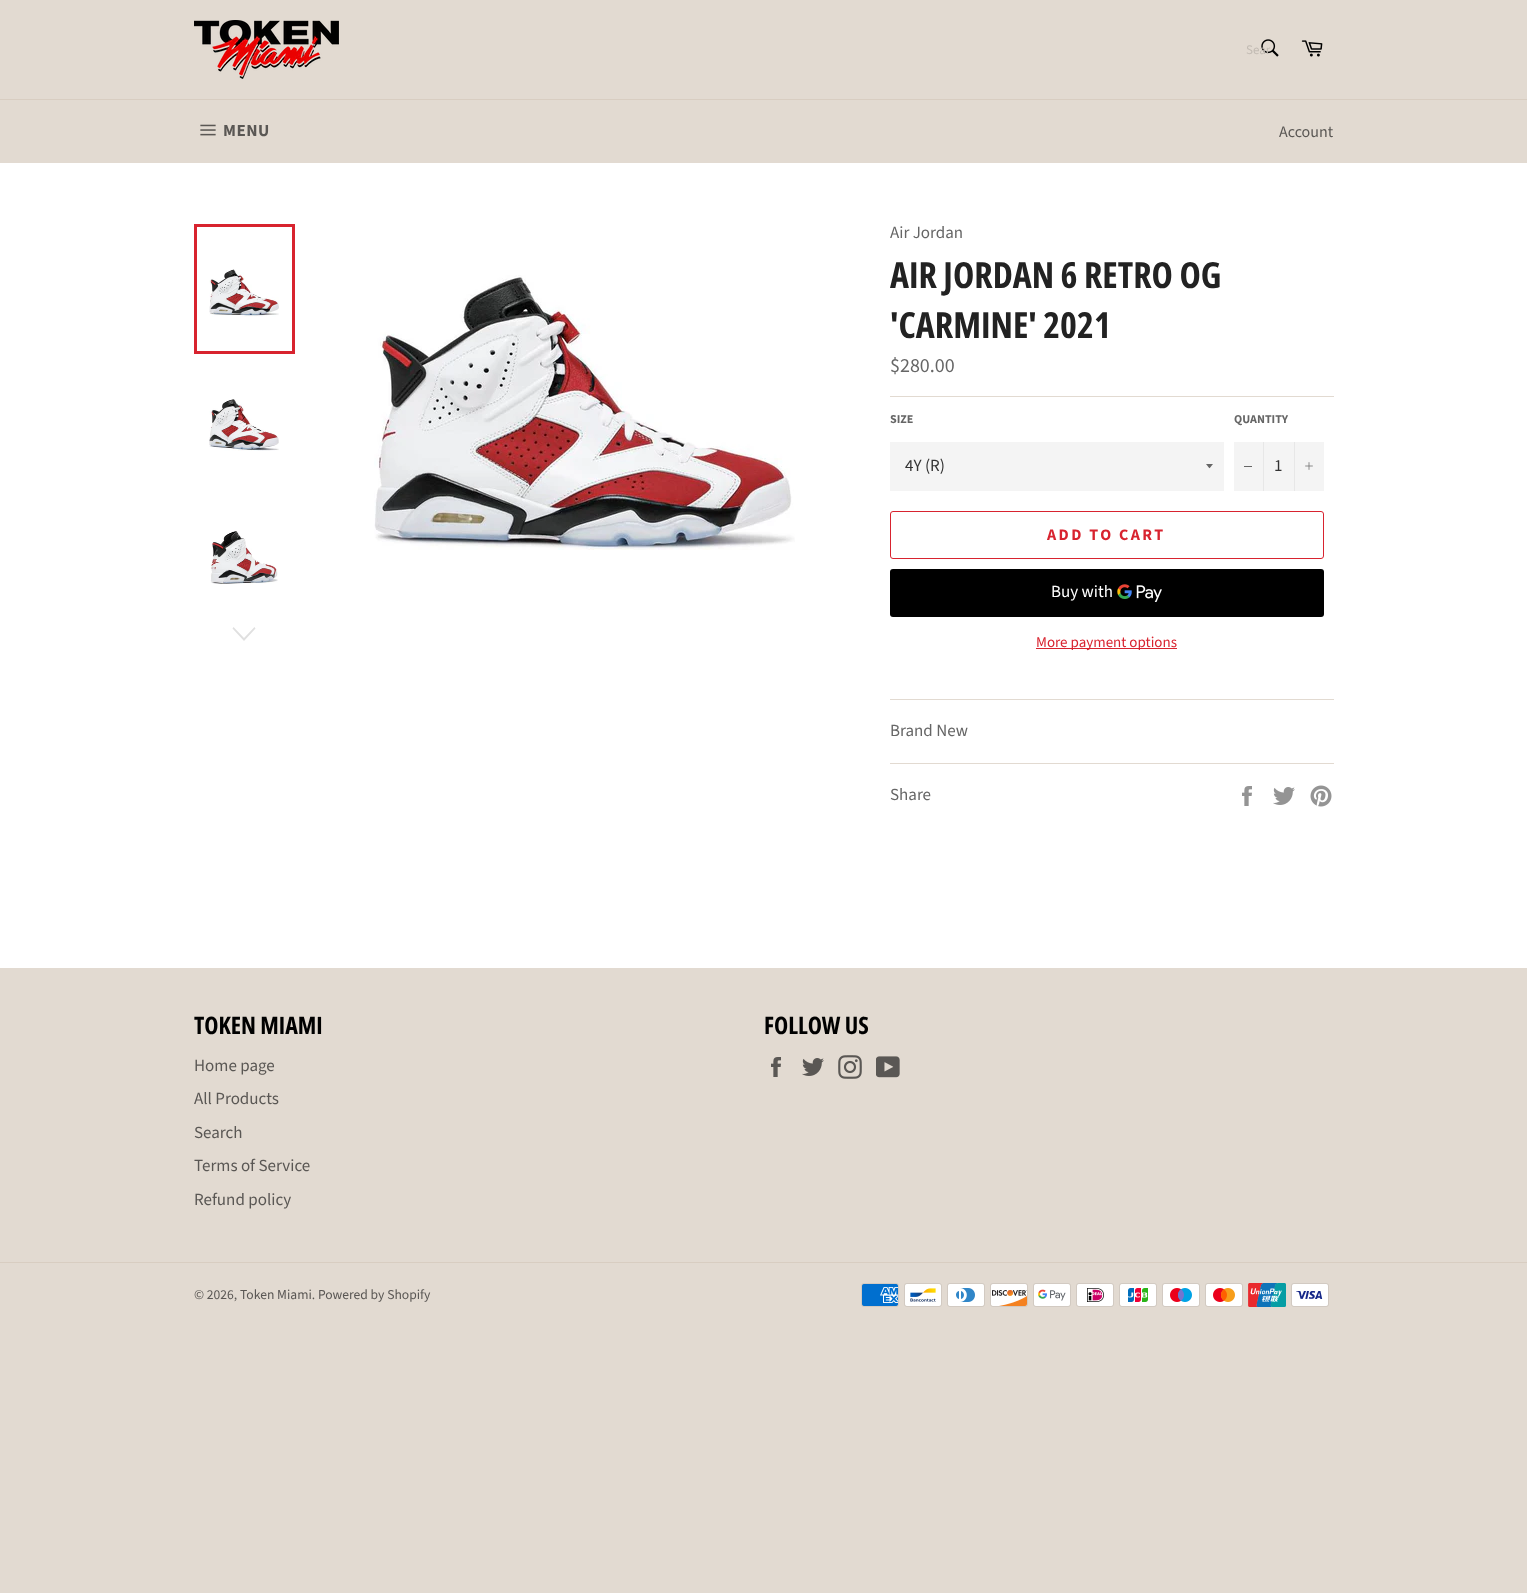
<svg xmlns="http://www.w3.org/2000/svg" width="1527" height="1593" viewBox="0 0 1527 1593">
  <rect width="100%" height="100%" fill="#e2dad1"/>
  <image x="194" y="20" width="145" height="59" href="img/1.png"/>
  <image x="1261" y="39" width="18" height="18" href="img/2.png"/>
  <image x="1301" y="40" width="22" height="17" href="img/3.png"/>
  <path d="M0 99h1527v1H0z" fill="#d8cdc1"/>
  <image x="200" y="124" width="16" height="12" href="img/4.png"/>
  <path d="M0 163h1527v805H0z" fill="#fff"/>
  <image x="209" y="269" width="70" height="48" href="img/5.png"/>
  <path d="M195.5 225.5h98v127H195.5z" fill="none" stroke="#d8232f" stroke-width="3"/>
  <image x="209" y="399" width="70" height="52" href="img/6.png"/>
  <image x="210" y="531" width="68" height="53" href="img/7.png"/>
  <path d="M254.5 627L255.5 628.5L244 641L232.5 628.5L233.5 627L244 638Z" fill="#e0e0e0"/>
  <image x="374" y="275" width="421" height="275" href="img/8.png"/>
  <path d="M890 396h444v1H890z" fill="#e2dad1"/>
  <path d="M890 442h334v49H890z" fill="#f4f4f4"/>
  <path d="M1206 464C1210.5 469.5 1208.5 469.5 1213 464Z" fill="#666"/>
  <path d="M1234 442h90v49H1234z" fill="#f4f4f4"/>
  <path d="M1263 442h1v49H1263z" fill="#e7e7e7"/>
  <path d="M1244 466h8v1H1244z" fill="#666"/>
  <path d="M1294 442h1v49H1294z" fill="#e7e7e7"/>
  <image x="1305" y="462" width="8" height="8" href="img/9.png"/>
  <rect x="890.5" y="511.5" width="433" height="47" rx="2.5" fill="none" stroke="#d8232f"/>
  <rect x="890" y="569" width="434" height="48" rx="3" fill="#000"/>
  <image x="1117" y="584" width="45" height="18" href="img/10.png"/>
  <path d="M1036 648h141v1H1036z" fill="#d8232f"/>
  <path d="M890 699h444v1H890z" fill="#e2dad1"/>
  <path d="M890 763h444v1H890z" fill="#e2dad1"/>
  <image x="1242" y="786" width="10" height="20" href="img/11.png"/>
  <image x="1273" y="787" width="22" height="18" href="img/12.png"/>
  <image x="1310" y="785" width="22" height="22" href="img/13.png"/>
  <image x="771" y="1057" width="10" height="20" href="img/14.png"/>
  <image x="802" y="1058" width="22" height="18" href="img/15.png"/>
  <image x="838" y="1055" width="24" height="24" href="img/16.png"/>
  <image x="876" y="1056" width="24" height="22" href="img/17.png"/>
  <path d="M0 1262h1527v1H0z" fill="#d8cdc1"/>
  <image x="861" y="1283" width="38" height="24" href="img/18.png"/>
  <image x="904" y="1283" width="38" height="24" href="img/19.png"/>
  <image x="947" y="1283" width="38" height="24" href="img/20.png"/>
  <image x="990" y="1283" width="38" height="24" href="img/21.png"/>
  <image x="1033" y="1283" width="38" height="24" href="img/22.png"/>
  <image x="1076" y="1283" width="38" height="24" href="img/23.png"/>
  <image x="1119" y="1283" width="38" height="24" href="img/24.png"/>
  <image x="1162" y="1283" width="38" height="24" href="img/25.png"/>
  <image x="1205" y="1283" width="38" height="24" href="img/26.png"/>
  <image x="1248" y="1283" width="38" height="24" href="img/27.png"/>
  <image x="1291" y="1283" width="38" height="24" href="img/28.png"/>
  <text x="1246" y="54" font-family="Source Sans Pro" font-size="13" fill="#c2bbb3">Sear</text>
  <text x="223" y="136" font-family="Source Sans Pro" font-size="17" font-weight="bold" letter-spacing="0.5" fill="#5a5754">MENU</text>
  <text x="1279" y="137" font-family="Source Sans Pro" font-size="16" fill="#5a5754">Account</text>
  <text x="890" y="238" font-family="Source Sans Pro" font-size="17" fill="#666">Air Jordan</text>
  <g font-family="Open Sans Condensed" font-size="36" font-weight="bold" fill="#222">
    <text x="890" y="288">AIR JORDAN 6 RETRO OG</text>
    <text x="890" y="338">'CARMINE' 2021</text>
  </g>
  <text x="890" y="372" font-family="Source Sans Pro" font-size="20" fill="#666">$280.00</text>
  <text x="890" y="423" font-family="Source Sans Pro" font-size="12" font-weight="bold" fill="#666">SIZE</text>
  <text x="905" y="471" font-family="Source Sans Pro" font-size="17" fill="#333">4Y (R)</text>
  <text x="1234" y="423" font-family="Source Sans Pro" font-size="12" font-weight="bold" fill="#666">QUANTITY</text>
  <text x="1274" y="471" font-family="Source Sans Pro" font-size="17" fill="#333">1</text>
  <text x="1047" y="540" font-family="Source Sans Pro" font-size="16" font-weight="bold" letter-spacing="2.4" fill="#d8232f">ADD TO CART</text>
  <text x="1051" y="597" font-family="Source Sans Pro" font-size="17" fill="#fff">Buy with</text>
  <text x="1036" y="647" font-family="Source Sans Pro" font-size="15" fill="#d8232f">More payment options</text>
  <g font-family="Source Sans Pro" font-size="17" fill="#666">
    <text x="890" y="736">Brand New</text>
    <text x="890" y="800">Share</text>
  </g>
  <text x="194" y="1034" font-family="Open Sans Condensed" font-size="24" font-weight="bold" fill="#000">TOKEN MIAMI</text>
  <g font-family="Source Sans Pro" font-size="17" fill="#5a5754">
    <text x="194" y="1071">Home page</text>
    <text x="194" y="1104">All Products</text>
    <text x="194" y="1138">Search</text>
    <text x="194" y="1171">Terms of Service</text>
    <text x="194" y="1205">Refund policy</text>
  </g>
  <text x="764" y="1034" font-family="Open Sans Condensed" font-size="24" font-weight="bold" fill="#000">FOLLOW US</text>
  <text x="194" y="1299" font-family="Source Sans Pro" font-size="13.6" fill="#5a5754">© 2026, Token Miami. Powered by Shopify</text>
</svg>
